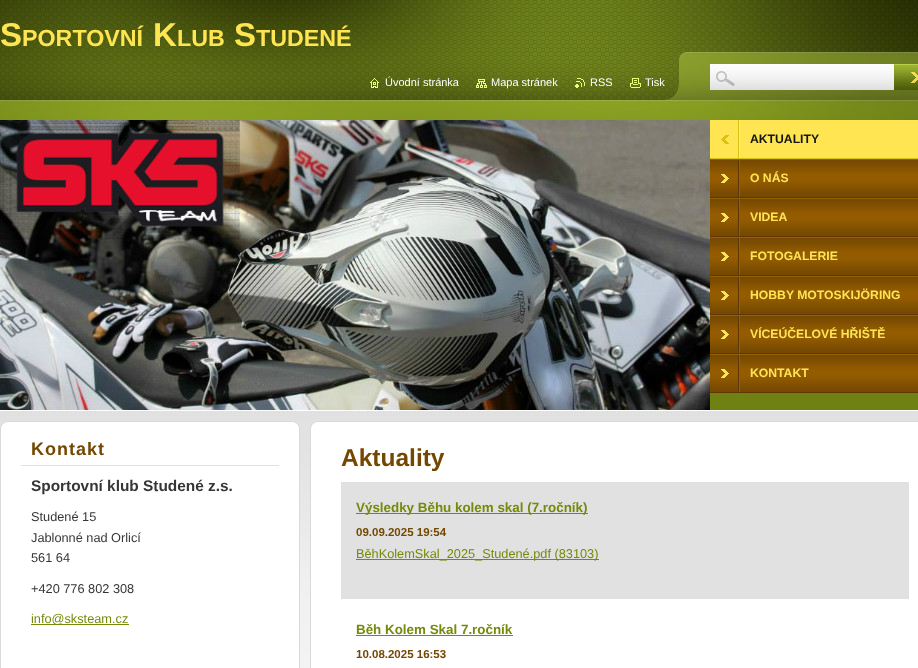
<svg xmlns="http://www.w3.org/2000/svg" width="918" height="668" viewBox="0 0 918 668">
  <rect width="100%" height="100%" fill="#fff"/>
  <image x="0" y="411" width="918" height="257" href="img/1.png"/>
  <image x="0" y="0" width="918" height="411" href="img/2.png"/>
  <image x="0" y="120" width="710" height="290" href="img/3.png"/>
  <image x="370" y="78" width="9" height="10" href="img/4.png"/>
  <image x="476" y="79" width="11" height="9" href="img/5.png"/>
  <image x="575" y="78" width="10" height="10" href="img/6.png"/>
  <image x="630" y="78" width="11" height="10" href="img/7.png"/>
  <path d="M710 64h184v1H710z" fill="#fff"/>
  <image x="710" y="65" width="184" height="25" href="img/8.png"/>
  <image x="894" y="64" width="24" height="26" href="img/9.png"/>
  <image x="710" y="120" width="208" height="39" href="img/10.png"/>
  <image x="710" y="159" width="208" height="39" href="img/11.png"/>
  <image x="710" y="198" width="208" height="39" href="img/11.png"/>
  <image x="710" y="237" width="208" height="39" href="img/11.png"/>
  <image x="710" y="276" width="208" height="39" href="img/11.png"/>
  <image x="710" y="315" width="208" height="39" href="img/11.png"/>
  <image x="710" y="354" width="208" height="39" href="img/11.png"/>
  <image x="0" y="421" width="300" height="8" href="img/12.png"/>
  <path d="M1 429h298v239H1z" fill="#fff"/>
  <path d="M299 429h1v239H299z" fill="#dadada"/>
  <path d="M0 429h1v239H0z" fill="#dadada"/>
  <path d="M21 465h258v1H21z" fill="#e1e1e1"/>
  <path d="M31 624h98v1H31z" fill="#738a0b"/>
  <image x="310" y="421" width="608" height="8" href="img/13.png"/>
  <path d="M311 429h607v239H311z" fill="#fff"/>
  <path d="M310 429h1v239H310z" fill="#dadada"/>
  <path d="M341 482h568v117H341z" fill="#e1e1e1"/>
  <path d="M356 513h232v1H356z" fill="#738a0b"/>
  <path d="M356 559h243v1H356z" fill="#738a0b"/>
  <path d="M356 635h157v1H356z" fill="#738a0b"/>
  <text x="0" y="46" font-family="Liberation Sans" font-size="33" font-weight="bold" fill="#ffe552">S</text>
  <text x="22" y="46" font-family="Liberation Sans" font-size="23.25" font-weight="bold" fill="#ffe552">PORTOVNÍ</text>
  <text x="153" y="46" font-family="Liberation Sans" font-size="33" font-weight="bold" fill="#ffe552">K</text>
  <text x="177" y="46" font-family="Liberation Sans" font-size="23.25" font-weight="bold" fill="#ffe552">LUB</text>
  <text x="234" y="46" font-family="Liberation Sans" font-size="33" font-weight="bold" fill="#ffe552">S</text>
  <text x="256" y="46" font-family="Liberation Sans" font-size="23.25" font-weight="bold" fill="#ffe552">TUDENÉ</text>
  <g font-family="Liberation Sans" font-size="11" fill="#fff">
    <text x="385" y="86">Úvodní stránka</text>
    <text x="491" y="86">Mapa stránek</text>
    <text x="590" y="86">RSS</text>
    <text x="645" y="86">Tisk</text>
  </g>
  <text x="750" y="143" font-family="Liberation Sans" font-size="12.2" font-weight="bold" fill="#141414">AKTUALITY</text>
  <g font-family="Liberation Sans" font-size="12.2" font-weight="bold" fill="#ffe552">
    <text x="750" y="182">O NÁS</text>
    <text x="750" y="221">VIDEA</text>
    <text x="750" y="260">FOTOGALERIE</text>
    <text x="750" y="299">HOBBY MOTOSKIJÖRING</text>
    <text x="750" y="338">VÍCEÚČELOVÉ HŘIŠTĚ</text>
    <text x="750" y="377">KONTAKT</text>
  </g>
  <text x="31" y="455" font-family="Liberation Sans" font-size="18" font-weight="bold" letter-spacing="1" fill="#744800">Kontakt</text>
  <text x="31" y="491" font-family="Liberation Sans" font-size="15.4" font-weight="bold" fill="#363636">Sportovní klub Studené z.s.</text>
  <g font-family="Liberation Sans" font-size="12.75" fill="#363636">
    <text x="31" y="521">Studené 15</text>
    <text x="31" y="542">Jablonné nad Orlicí</text>
    <text x="31" y="562">561 64</text>
    <text x="31" y="593">+420 776 802 308</text>
  </g>
  <text x="31" y="623" font-family="Liberation Sans" font-size="12.75" fill="#738a0b">info@sksteam.cz</text>
  <text x="341" y="466" font-family="Liberation Sans" font-size="24.5" font-weight="bold" fill="#744800">Aktuality</text>
  <text x="356" y="512" font-family="Liberation Sans" font-size="13.4" font-weight="bold" fill="#738a0b">Výsledky Běhu kolem skal (7.ročník)</text>
  <text x="356" y="536" font-family="Liberation Sans" font-size="11.5" font-weight="bold" fill="#744800">09.09.2025 19:54</text>
  <text x="356" y="558" font-family="Liberation Sans" font-size="12.75" fill="#738a0b">BěhKolemSkal_2025_Studené.pdf (83103)</text>
  <text x="356" y="634" font-family="Liberation Sans" font-size="13.4" font-weight="bold" fill="#738a0b">Běh Kolem Skal 7.ročník</text>
  <text x="356" y="658" font-family="Liberation Sans" font-size="11.5" font-weight="bold" fill="#744800">10.08.2025 16:53</text>
</svg>
